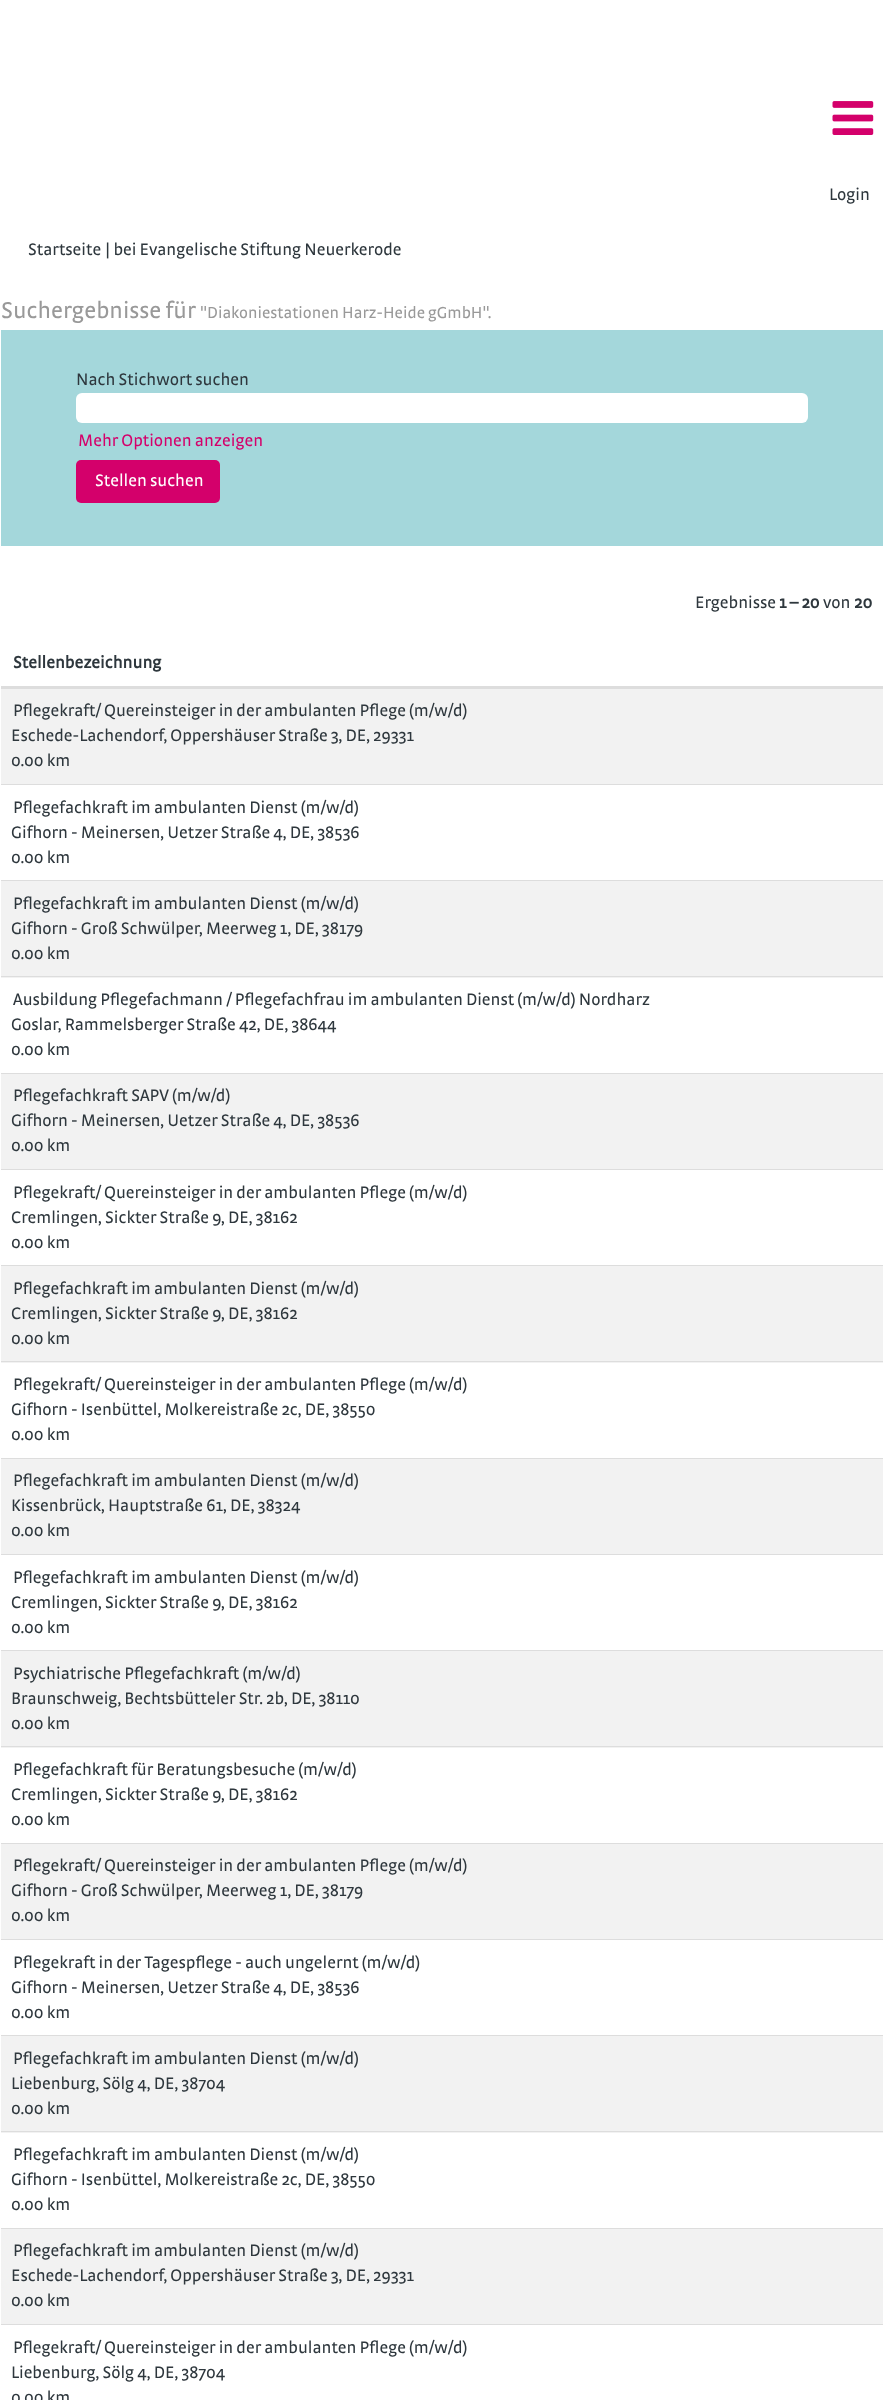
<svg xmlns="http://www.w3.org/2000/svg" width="883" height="2400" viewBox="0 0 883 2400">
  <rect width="100%" height="100%" fill="#fff"/>
  <image x="832" y="101" width="42" height="34" href="img/1.png"/>
  <path d="M1 330h882v216H1z" fill="#a4d7db"/>
  <rect x="76" y="393" width="732" height="30" rx="6" fill="#fff"/>
  <rect x="76" y="460" width="144" height="43" rx="5" fill="#d4006b"/>
  <path d="M1 686h882v3H1z" fill="#ddd"/>
  <path d="M1 689h882v95H1z" fill="#f2f2f2"/>
  <path d="M1 784h882v1H1z" fill="#ddd"/>
  <path d="M1 881h882v97H1z" fill="#f2f2f2"/>
  <path d="M1 880h882v1H1z" fill="#ddd"/>
  <path d="M1 976h882v1H1z" fill="#ddd"/>
  <path d="M1 1074h882v95H1z" fill="#f2f2f2"/>
  <path d="M1 1073h882v1H1z" fill="#ddd"/>
  <path d="M1 1169h882v1H1z" fill="#ddd"/>
  <path d="M1 1266h882v97H1z" fill="#f2f2f2"/>
  <path d="M1 1265h882v1H1z" fill="#ddd"/>
  <path d="M1 1361h882v1H1z" fill="#ddd"/>
  <path d="M1 1459h882v95H1z" fill="#f2f2f2"/>
  <path d="M1 1458h882v1H1z" fill="#ddd"/>
  <path d="M1 1554h882v1H1z" fill="#ddd"/>
  <path d="M1 1651h882v97H1z" fill="#f2f2f2"/>
  <path d="M1 1650h882v1H1z" fill="#ddd"/>
  <path d="M1 1746h882v1H1z" fill="#ddd"/>
  <path d="M1 1844h882v95H1z" fill="#f2f2f2"/>
  <path d="M1 1843h882v1H1z" fill="#ddd"/>
  <path d="M1 1939h882v1H1z" fill="#ddd"/>
  <path d="M1 2036h882v97H1z" fill="#f2f2f2"/>
  <path d="M1 2035h882v1H1z" fill="#ddd"/>
  <path d="M1 2131h882v1H1z" fill="#ddd"/>
  <path d="M1 2229h882v95H1z" fill="#f2f2f2"/>
  <path d="M1 2228h882v1H1z" fill="#ddd"/>
  <path d="M1 2324h882v1H1z" fill="#ddd"/>
  <g font-family="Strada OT" font-size="17.5" fill="#2e373d">
    <text x="829" y="200">Login</text>
    <text x="28" y="255">Startseite</text>
    <text x="105" y="255">| bei Evangelische Stiftung Neuerkerode</text>
  </g>
  <text x="1" y="318" font-family="Strada OT" font-size="24" fill="#999">Suchergebnisse für</text>
  <text x="200" y="318" font-family="Strada OT" font-size="16.8" fill="#999">"Diakoniestationen Harz-Heide gGmbH".</text>
  <text x="76" y="385" font-family="Strada OT" font-size="17.5" fill="#2e373d">Nach Stichwort suchen</text>
  <text x="78" y="446" font-family="Strada OT" font-size="17.5" fill="#d4006b">Mehr Optionen anzeigen</text>
  <text x="95" y="486" font-family="Strada OT" font-size="17.5" fill="#fff">Stellen suchen</text>
  <text x="695" y="608" font-family="Strada OT" font-size="17.5" fill="#2e373d">Ergebnisse</text>
  <text x="779" y="608" font-family="Strada OT" font-size="17.5" font-weight="bold" fill="#2e373d">1 – 20</text>
  <text x="823" y="608" font-family="Strada OT" font-size="17.5" fill="#2e373d">von</text>
  <g font-family="Strada OT" font-size="17.5" font-weight="bold" fill="#2e373d">
    <text x="854" y="608">20</text>
    <text x="13" y="668">Stellenbezeichnung</text>
  </g>
  <g font-family="Strada OT" font-size="17.5" fill="#2e373d">
    <text x="13" y="716">Pflegekraft/ Quereinsteiger in der ambulanten Pflege (m/w/d)</text>
    <text x="11" y="741">Eschede-Lachendorf, Oppershäuser Straße 3, DE, 29331</text>
    <text x="11" y="766">0.00 km</text>
    <text x="13" y="813">Pflegefachkraft im ambulanten Dienst (m/w/d)</text>
    <text x="11" y="838">Gifhorn - Meinersen, Uetzer Straße 4, DE, 38536</text>
    <text x="11" y="863">0.00 km</text>
    <text x="13" y="909">Pflegefachkraft im ambulanten Dienst (m/w/d)</text>
    <text x="11" y="934">Gifhorn - Groß Schwülper, Meerweg 1, DE, 38179</text>
    <text x="11" y="959">0.00 km</text>
    <text x="13" y="1005">Ausbildung Pflegefachmann / Pflegefachfrau im ambulanten Dienst (m/w/d) Nordharz</text>
    <text x="11" y="1030">Goslar, Rammelsberger Straße 42, DE, 38644</text>
    <text x="11" y="1055">0.00 km</text>
    <text x="13" y="1101">Pflegefachkraft SAPV (m/w/d)</text>
    <text x="11" y="1126">Gifhorn - Meinersen, Uetzer Straße 4, DE, 38536</text>
    <text x="11" y="1151">0.00 km</text>
    <text x="13" y="1198">Pflegekraft/ Quereinsteiger in der ambulanten Pflege (m/w/d)</text>
    <text x="11" y="1223">Cremlingen, Sickter Straße 9, DE, 38162</text>
    <text x="11" y="1248">0.00 km</text>
    <text x="13" y="1294">Pflegefachkraft im ambulanten Dienst (m/w/d)</text>
    <text x="11" y="1319">Cremlingen, Sickter Straße 9, DE, 38162</text>
    <text x="11" y="1344">0.00 km</text>
    <text x="13" y="1390">Pflegekraft/ Quereinsteiger in der ambulanten Pflege (m/w/d)</text>
    <text x="11" y="1415">Gifhorn - Isenbüttel, Molkereistraße 2c, DE, 38550</text>
    <text x="11" y="1440">0.00 km</text>
    <text x="13" y="1486">Pflegefachkraft im ambulanten Dienst (m/w/d)</text>
    <text x="11" y="1511">Kissenbrück, Hauptstraße 61, DE, 38324</text>
    <text x="11" y="1536">0.00 km</text>
    <text x="13" y="1583">Pflegefachkraft im ambulanten Dienst (m/w/d)</text>
    <text x="11" y="1608">Cremlingen, Sickter Straße 9, DE, 38162</text>
    <text x="11" y="1633">0.00 km</text>
    <text x="13" y="1679">Psychiatrische Pflegefachkraft (m/w/d)</text>
    <text x="11" y="1704">Braunschweig, Bechtsbütteler Str. 2b, DE, 38110</text>
    <text x="11" y="1729">0.00 km</text>
    <text x="13" y="1775">Pflegefachkraft für Beratungsbesuche (m/w/d)</text>
    <text x="11" y="1800">Cremlingen, Sickter Straße 9, DE, 38162</text>
    <text x="11" y="1825">0.00 km</text>
    <text x="13" y="1871">Pflegekraft/ Quereinsteiger in der ambulanten Pflege (m/w/d)</text>
    <text x="11" y="1896">Gifhorn - Groß Schwülper, Meerweg 1, DE, 38179</text>
    <text x="11" y="1921">0.00 km</text>
    <text x="13" y="1968">Pflegekraft in der Tagespflege - auch ungelernt (m/w/d)</text>
    <text x="11" y="1993">Gifhorn - Meinersen, Uetzer Straße 4, DE, 38536</text>
    <text x="11" y="2018">0.00 km</text>
    <text x="13" y="2064">Pflegefachkraft im ambulanten Dienst (m/w/d)</text>
    <text x="11" y="2089">Liebenburg, Sölg 4, DE, 38704</text>
    <text x="11" y="2114">0.00 km</text>
    <text x="13" y="2160">Pflegefachkraft im ambulanten Dienst (m/w/d)</text>
    <text x="11" y="2185">Gifhorn - Isenbüttel, Molkereistraße 2c, DE, 38550</text>
    <text x="11" y="2210">0.00 km</text>
    <text x="13" y="2256">Pflegefachkraft im ambulanten Dienst (m/w/d)</text>
    <text x="11" y="2281">Eschede-Lachendorf, Oppershäuser Straße 3, DE, 29331</text>
    <text x="11" y="2306">0.00 km</text>
    <text x="13" y="2353">Pflegekraft/ Quereinsteiger in der ambulanten Pflege (m/w/d)</text>
    <text x="11" y="2378">Liebenburg, Sölg 4, DE, 38704</text>
    <text x="11" y="2403">0.00 km</text>
  </g>
</svg>
